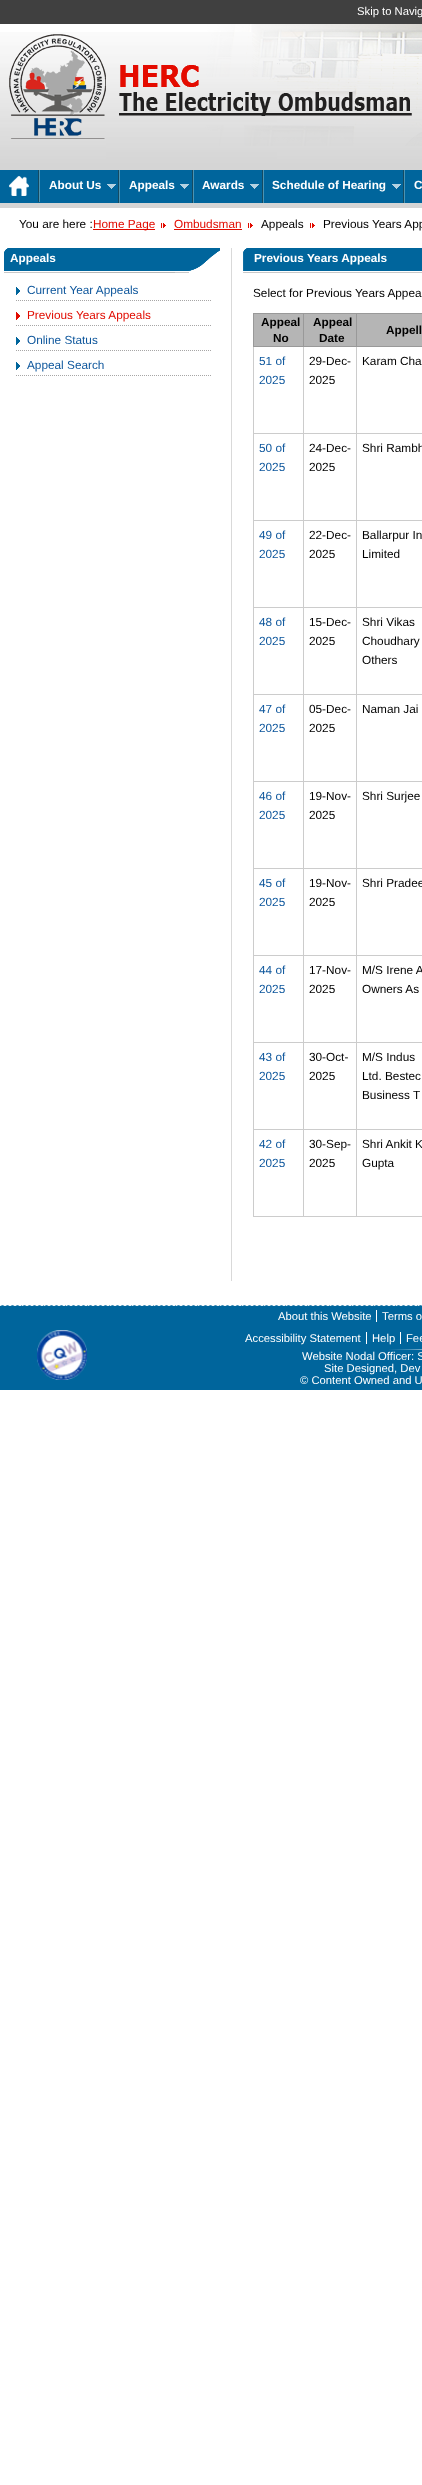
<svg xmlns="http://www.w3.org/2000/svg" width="422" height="2485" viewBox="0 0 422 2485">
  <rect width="100%" height="100%" fill="#fff"/>
  <image x="0" y="24" width="422" height="184" href="img/1.png"/>
  <path d="M0 0h422v24H0z" fill="#404040"/>
  <image x="9" y="34" width="97" height="105" href="img/2.png"/>
  <image x="119" y="65" width="293" height="51" href="img/3.png"/>
  <path d="M0 170h422v33H0z" fill="#00659c"/>
  <image x="38" y="170" width="2" height="32" href="img/4.png"/>
  <image x="9" y="176" width="20" height="20" href="img/5.png"/>
  <image x="118" y="170" width="2" height="33" href="img/6.png"/>
  <image x="107" y="184" width="9" height="5" href="img/7.png"/>
  <image x="192" y="170" width="2" height="33" href="img/6.png"/>
  <image x="180" y="184" width="9" height="5" href="img/7.png"/>
  <image x="262" y="170" width="2" height="33" href="img/6.png"/>
  <image x="250" y="184" width="9" height="5" href="img/7.png"/>
  <image x="403" y="170" width="2" height="33" href="img/6.png"/>
  <image x="392" y="184" width="9" height="5" href="img/7.png"/>
  <path d="M93 229h62v1H93z" fill="#e10b00"/>
  <image x="161" y="223" width="5" height="5" href="img/8.png"/>
  <path d="M174 229h68v1H174z" fill="#e10b00"/>
  <image x="248" y="223" width="5" height="5" href="img/8.png"/>
  <image x="310" y="223" width="5" height="5" href="img/8.png"/>
  <image x="4" y="248" width="216" height="25" href="img/9.png"/>
  <path d="M16 300.5H211" fill="none" stroke="#a7a6a6" stroke-dasharray="1 1"/>
  <image x="16" y="287" width="4" height="8" href="img/10.png"/>
  <path d="M16 325.5H211" fill="none" stroke="#a7a6a6" stroke-dasharray="1 1"/>
  <image x="16" y="312" width="4" height="8" href="img/11.png"/>
  <path d="M16 350.5H211" fill="none" stroke="#a7a6a6" stroke-dasharray="1 1"/>
  <image x="16" y="337" width="4" height="8" href="img/10.png"/>
  <path d="M16 375.5H211" fill="none" stroke="#a7a6a6" stroke-dasharray="1 1"/>
  <image x="16" y="362" width="4" height="8" href="img/10.png"/>
  <path d="M231 248h1v1033H231z" fill="#d9d9d9"/>
  <image x="243" y="248" width="7" height="25" href="img/12.png"/>
  <image x="250" y="248" width="172" height="25" href="img/13.png"/>
  <path d="M253 347h1v870H253z" fill="#ccc"/>
  <path d="M254 314h49v32H254z" fill="#b5b5b5"/>
  <path d="M356 313h66v1H356z" fill="#999"/>
  <path d="M356 433h66v1H356z" fill="#ccc"/>
  <path d="M356 520h66v1H356z" fill="#ccc"/>
  <path d="M356 607h66v1H356z" fill="#ccc"/>
  <path d="M356 694h66v1H356z" fill="#ccc"/>
  <path d="M356 781h66v1H356z" fill="#ccc"/>
  <path d="M356 868h66v1H356z" fill="#ccc"/>
  <path d="M356 955h66v1H356z" fill="#ccc"/>
  <path d="M356 1042h66v1H356z" fill="#ccc"/>
  <path d="M356 1129h66v1H356z" fill="#ccc"/>
  <path d="M356 1216h66v1H356z" fill="#ccc"/>
  <path d="M356 1129h1v88H356z" fill="#ccc"/>
  <path d="M303 1129h54v1H303z" fill="#ccc"/>
  <path d="M356 1042h1v88H356z" fill="#ccc"/>
  <path d="M303 1042h54v1H303z" fill="#ccc"/>
  <path d="M356 955h1v88H356z" fill="#ccc"/>
  <path d="M303 955h54v1H303z" fill="#ccc"/>
  <path d="M356 868h1v88H356z" fill="#ccc"/>
  <path d="M303 868h54v1H303z" fill="#ccc"/>
  <path d="M356 781h1v88H356z" fill="#ccc"/>
  <path d="M303 781h54v1H303z" fill="#ccc"/>
  <path d="M356 694h1v88H356z" fill="#ccc"/>
  <path d="M303 694h54v1H303z" fill="#ccc"/>
  <path d="M356 607h1v88H356z" fill="#ccc"/>
  <path d="M303 607h54v1H303z" fill="#ccc"/>
  <path d="M356 520h1v88H356z" fill="#ccc"/>
  <path d="M303 520h54v1H303z" fill="#ccc"/>
  <path d="M356 433h1v88H356z" fill="#ccc"/>
  <path d="M303 433h54v1H303z" fill="#ccc"/>
  <path d="M356 346h1v88H356z" fill="#ccc"/>
  <path d="M356 346h66v1H356z" fill="#999"/>
  <path d="M356 313h1v34H356z" fill="#999"/>
  <path d="M303 313h54v1H303z" fill="#999"/>
  <path d="M303 1216h54v1H303z" fill="#ccc"/>
  <path d="M303 1129h1v88H303z" fill="#ccc"/>
  <path d="M253 1129h51v1H253z" fill="#ccc"/>
  <path d="M303 1042h1v88H303z" fill="#ccc"/>
  <path d="M253 1042h51v1H253z" fill="#ccc"/>
  <path d="M303 955h1v88H303z" fill="#ccc"/>
  <path d="M253 955h51v1H253z" fill="#ccc"/>
  <path d="M303 868h1v88H303z" fill="#ccc"/>
  <path d="M253 868h51v1H253z" fill="#ccc"/>
  <path d="M303 781h1v88H303z" fill="#ccc"/>
  <path d="M253 781h51v1H253z" fill="#ccc"/>
  <path d="M303 694h1v88H303z" fill="#ccc"/>
  <path d="M253 694h51v1H253z" fill="#ccc"/>
  <path d="M303 607h1v88H303z" fill="#ccc"/>
  <path d="M253 607h51v1H253z" fill="#ccc"/>
  <path d="M303 520h1v88H303z" fill="#ccc"/>
  <path d="M253 520h51v1H253z" fill="#ccc"/>
  <path d="M303 433h1v88H303z" fill="#ccc"/>
  <path d="M253 433h51v1H253z" fill="#ccc"/>
  <path d="M303 346h1v88H303z" fill="#ccc"/>
  <path d="M303 346h54v1H303z" fill="#999"/>
  <path d="M303 313h1v34H303z" fill="#999"/>
  <path d="M253 313h51v1H253z" fill="#999"/>
  <path d="M253 346h51v1H253z" fill="#999"/>
  <path d="M253 313h1v34H253z" fill="#999"/>
  <path d="M304 314h52v32H304z" fill="#b5b5b5"/>
  <path d="M357 314h65v32H357z" fill="#b5b5b5"/>
  <path d="M253 1216h51v1H253z" fill="#ccc"/>
  <path d="M0 1305h422v85H0z" fill="#00659c"/>
  <image x="0" y="1305" width="422" height="1" href="img/14.png"/>
  <image x="389" y="1349" width="33" height="1" href="img/15.png"/>
  <path d="M376 1310h1v12H376z" fill="#fff"/>
  <path d="M366 1332h1v12H366z" fill="#fff"/>
  <path d="M400 1332h1v12H400z" fill="#fff"/>
  <image x="37" y="1330" width="50" height="50" href="img/16.png"/>
  <text x="357" y="15" font-family="Liberation Sans" font-size="11.25" fill="#fff">Skip to Navig</text>
  <g font-family="Liberation Sans" font-size="11.8" font-weight="bold" fill="#fff">
    <text x="49" y="189">About Us</text>
    <text x="129" y="189">Appeals</text>
    <text x="202" y="189">Awards</text>
    <text x="272" y="189">Schedule of Hearing</text>
    <text x="414" y="189">C</text>
  </g>
  <text x="19" y="228" font-family="Liberation Sans" font-size="11.8" fill="#000">You are here :</text>
  <g font-family="Liberation Sans" font-size="11.8" fill="#e10b00">
    <text x="93" y="228">Home Page</text>
    <text x="174" y="228">Ombudsman</text>
  </g>
  <g font-family="Liberation Sans" font-size="11.8" fill="#000">
    <text x="261" y="228">Appeals</text>
    <text x="323" y="228">Previous Years App</text>
  </g>
  <text x="10" y="262" font-family="Liberation Sans" font-size="11.8" font-weight="bold" fill="#fff">Appeals</text>
  <text x="27" y="294" font-family="Liberation Sans" font-size="11.8" fill="#0d569c">Current Year Appeals</text>
  <text x="27" y="319" font-family="Liberation Sans" font-size="11.8" fill="#e10b00">Previous Years Appeals</text>
  <g font-family="Liberation Sans" font-size="11.8" fill="#0d569c">
    <text x="27" y="344">Online Status</text>
    <text x="27" y="369">Appeal Search</text>
  </g>
  <text x="254" y="262" font-family="Liberation Sans" font-size="11.8" font-weight="bold" fill="#fff">Previous Years Appeals</text>
  <text x="253" y="297" font-family="Liberation Sans" font-size="11.8" fill="#000">Select for Previous Years Appea</text>
  <g font-family="Liberation Sans" font-size="11.8" font-weight="bold" fill="#000">
    <text x="261" y="326">Appeal</text>
    <text x="273" y="342">No</text>
    <text x="313" y="326">Appeal</text>
    <text x="319" y="342">Date</text>
    <text x="386" y="334">Appell</text>
  </g>
  <g font-family="Liberation Sans" font-size="11.8" fill="#0d569c">
    <text x="259" y="365">51 of</text>
    <text x="259" y="384">2025</text>
  </g>
  <g font-family="Liberation Sans" font-size="11.8" fill="#000">
    <text x="309" y="365">29-Dec-</text>
    <text x="309" y="384">2025</text>
    <text x="362" y="365">Karam Cha</text>
  </g>
  <g font-family="Liberation Sans" font-size="11.8" fill="#0d569c">
    <text x="259" y="452">50 of</text>
    <text x="259" y="471">2025</text>
  </g>
  <g font-family="Liberation Sans" font-size="11.8" fill="#000">
    <text x="309" y="452">24-Dec-</text>
    <text x="309" y="471">2025</text>
    <text x="362" y="452">Shri Rambh</text>
  </g>
  <g font-family="Liberation Sans" font-size="11.8" fill="#0d569c">
    <text x="259" y="539">49 of</text>
    <text x="259" y="558">2025</text>
  </g>
  <g font-family="Liberation Sans" font-size="11.8" fill="#000">
    <text x="309" y="539">22-Dec-</text>
    <text x="309" y="558">2025</text>
    <text x="362" y="539">Ballarpur In</text>
    <text x="362" y="558">Limited</text>
  </g>
  <g font-family="Liberation Sans" font-size="11.8" fill="#0d569c">
    <text x="259" y="626">48 of</text>
    <text x="259" y="645">2025</text>
  </g>
  <g font-family="Liberation Sans" font-size="11.8" fill="#000">
    <text x="309" y="626">15-Dec-</text>
    <text x="309" y="645">2025</text>
    <text x="362" y="626">Shri Vikas</text>
    <text x="362" y="645">Choudhary</text>
    <text x="362" y="664">Others</text>
  </g>
  <g font-family="Liberation Sans" font-size="11.8" fill="#0d569c">
    <text x="259" y="713">47 of</text>
    <text x="259" y="732">2025</text>
  </g>
  <g font-family="Liberation Sans" font-size="11.8" fill="#000">
    <text x="309" y="713">05-Dec-</text>
    <text x="309" y="732">2025</text>
    <text x="362" y="713">Naman Jai</text>
  </g>
  <g font-family="Liberation Sans" font-size="11.8" fill="#0d569c">
    <text x="259" y="800">46 of</text>
    <text x="259" y="819">2025</text>
  </g>
  <g font-family="Liberation Sans" font-size="11.8" fill="#000">
    <text x="309" y="800">19-Nov-</text>
    <text x="309" y="819">2025</text>
    <text x="362" y="800">Shri Surjee</text>
  </g>
  <g font-family="Liberation Sans" font-size="11.8" fill="#0d569c">
    <text x="259" y="887">45 of</text>
    <text x="259" y="906">2025</text>
  </g>
  <g font-family="Liberation Sans" font-size="11.8" fill="#000">
    <text x="309" y="887">19-Nov-</text>
    <text x="309" y="906">2025</text>
    <text x="362" y="887">Shri Pradee</text>
  </g>
  <g font-family="Liberation Sans" font-size="11.8" fill="#0d569c">
    <text x="259" y="974">44 of</text>
    <text x="259" y="993">2025</text>
  </g>
  <g font-family="Liberation Sans" font-size="11.8" fill="#000">
    <text x="309" y="974">17-Nov-</text>
    <text x="309" y="993">2025</text>
    <text x="362" y="974">M/S Irene A</text>
    <text x="362" y="993">Owners As</text>
  </g>
  <g font-family="Liberation Sans" font-size="11.8" fill="#0d569c">
    <text x="259" y="1061">43 of</text>
    <text x="259" y="1080">2025</text>
  </g>
  <g font-family="Liberation Sans" font-size="11.8" fill="#000">
    <text x="309" y="1061">30-Oct-</text>
    <text x="309" y="1080">2025</text>
    <text x="362" y="1061">M/S Indus</text>
    <text x="362" y="1080">Ltd. Bestec</text>
    <text x="362" y="1099">Business T</text>
  </g>
  <g font-family="Liberation Sans" font-size="11.8" fill="#0d569c">
    <text x="259" y="1148">42 of</text>
    <text x="259" y="1167">2025</text>
  </g>
  <g font-family="Liberation Sans" font-size="11.8" fill="#000">
    <text x="309" y="1148">30-Sep-</text>
    <text x="309" y="1167">2025</text>
    <text x="362" y="1148">Shri Ankit K</text>
    <text x="362" y="1167">Gupta</text>
  </g>
  <g font-family="Liberation Sans" font-size="11.25" fill="#fff">
    <text x="278" y="1320">About this Website</text>
    <text x="382" y="1320">Terms o</text>
    <text x="245" y="1342">Accessibility Statement</text>
    <text x="372" y="1342">Help</text>
    <text x="406" y="1342">Fee</text>
    <text x="302" y="1360">Website Nodal Officer: S</text>
    <text x="324" y="1372">Site Designed, Dev</text>
    <text x="300" y="1384">© Content Owned and U</text>
  </g>
</svg>
